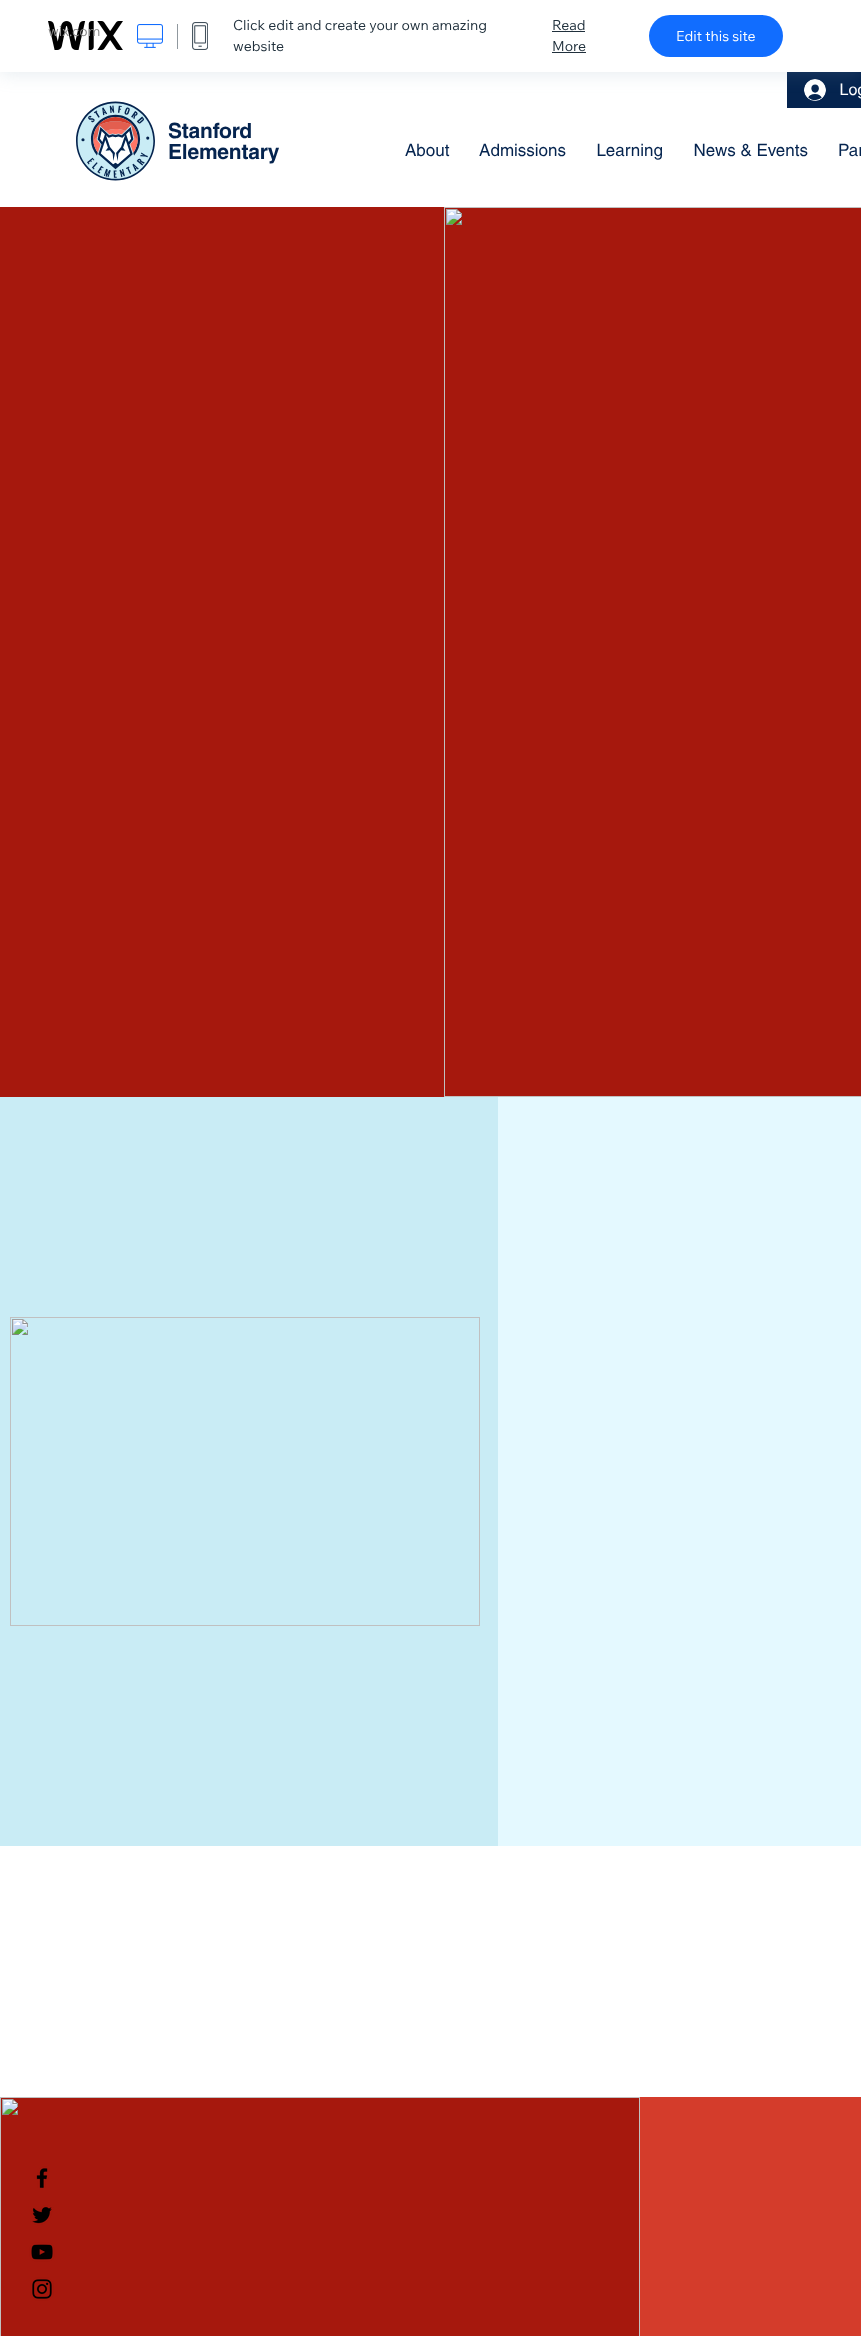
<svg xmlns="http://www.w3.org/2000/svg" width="861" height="2336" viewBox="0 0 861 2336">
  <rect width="100%" height="100%" fill="#fff"/>
  <image x="0" y="72" width="861" height="2264" href="img/4.png"/>
  <path d="M0 2h861v72H0z" fill="#81a2b633" filter="blur(9px)"/>
  <path d="M0 0h861v72H0z" fill="#fff"/>
  <image x="48" y="21" width="75" height="29" href="img/1.png"/>
  <image x="137" y="24" width="26" height="24" href="img/2.png"/>
  <path d="M177 24h1v25H177z" fill="#90989e"/>
  <image x="192" y="22" width="16" height="28" href="img/3.png"/>
  <path d="M552 31h33v1H552z" fill="#20303c"/>
  <path d="M552 52h34v1H552z" fill="#20303c"/>
  <rect x="649" y="15" width="134" height="42" rx="21" fill="#116dff"/>
  <text x="48" y="36" font-family="Wix Madefor Text" font-size="14" fill="#8a8a8a">wix.com</text>
  <g font-family="Wix Madefor Text" font-size="14" fill="#20303c">
    <text x="233" y="30">Click edit and create your own amazing</text>
    <text x="233" y="51">website</text>
    <text x="552" y="30">Read</text>
    <text x="552" y="51">More</text>
  </g>
  <text x="676" y="41" font-family="Wix Madefor Text" font-size="14" fill="#fff">Edit this site</text>
</svg>
